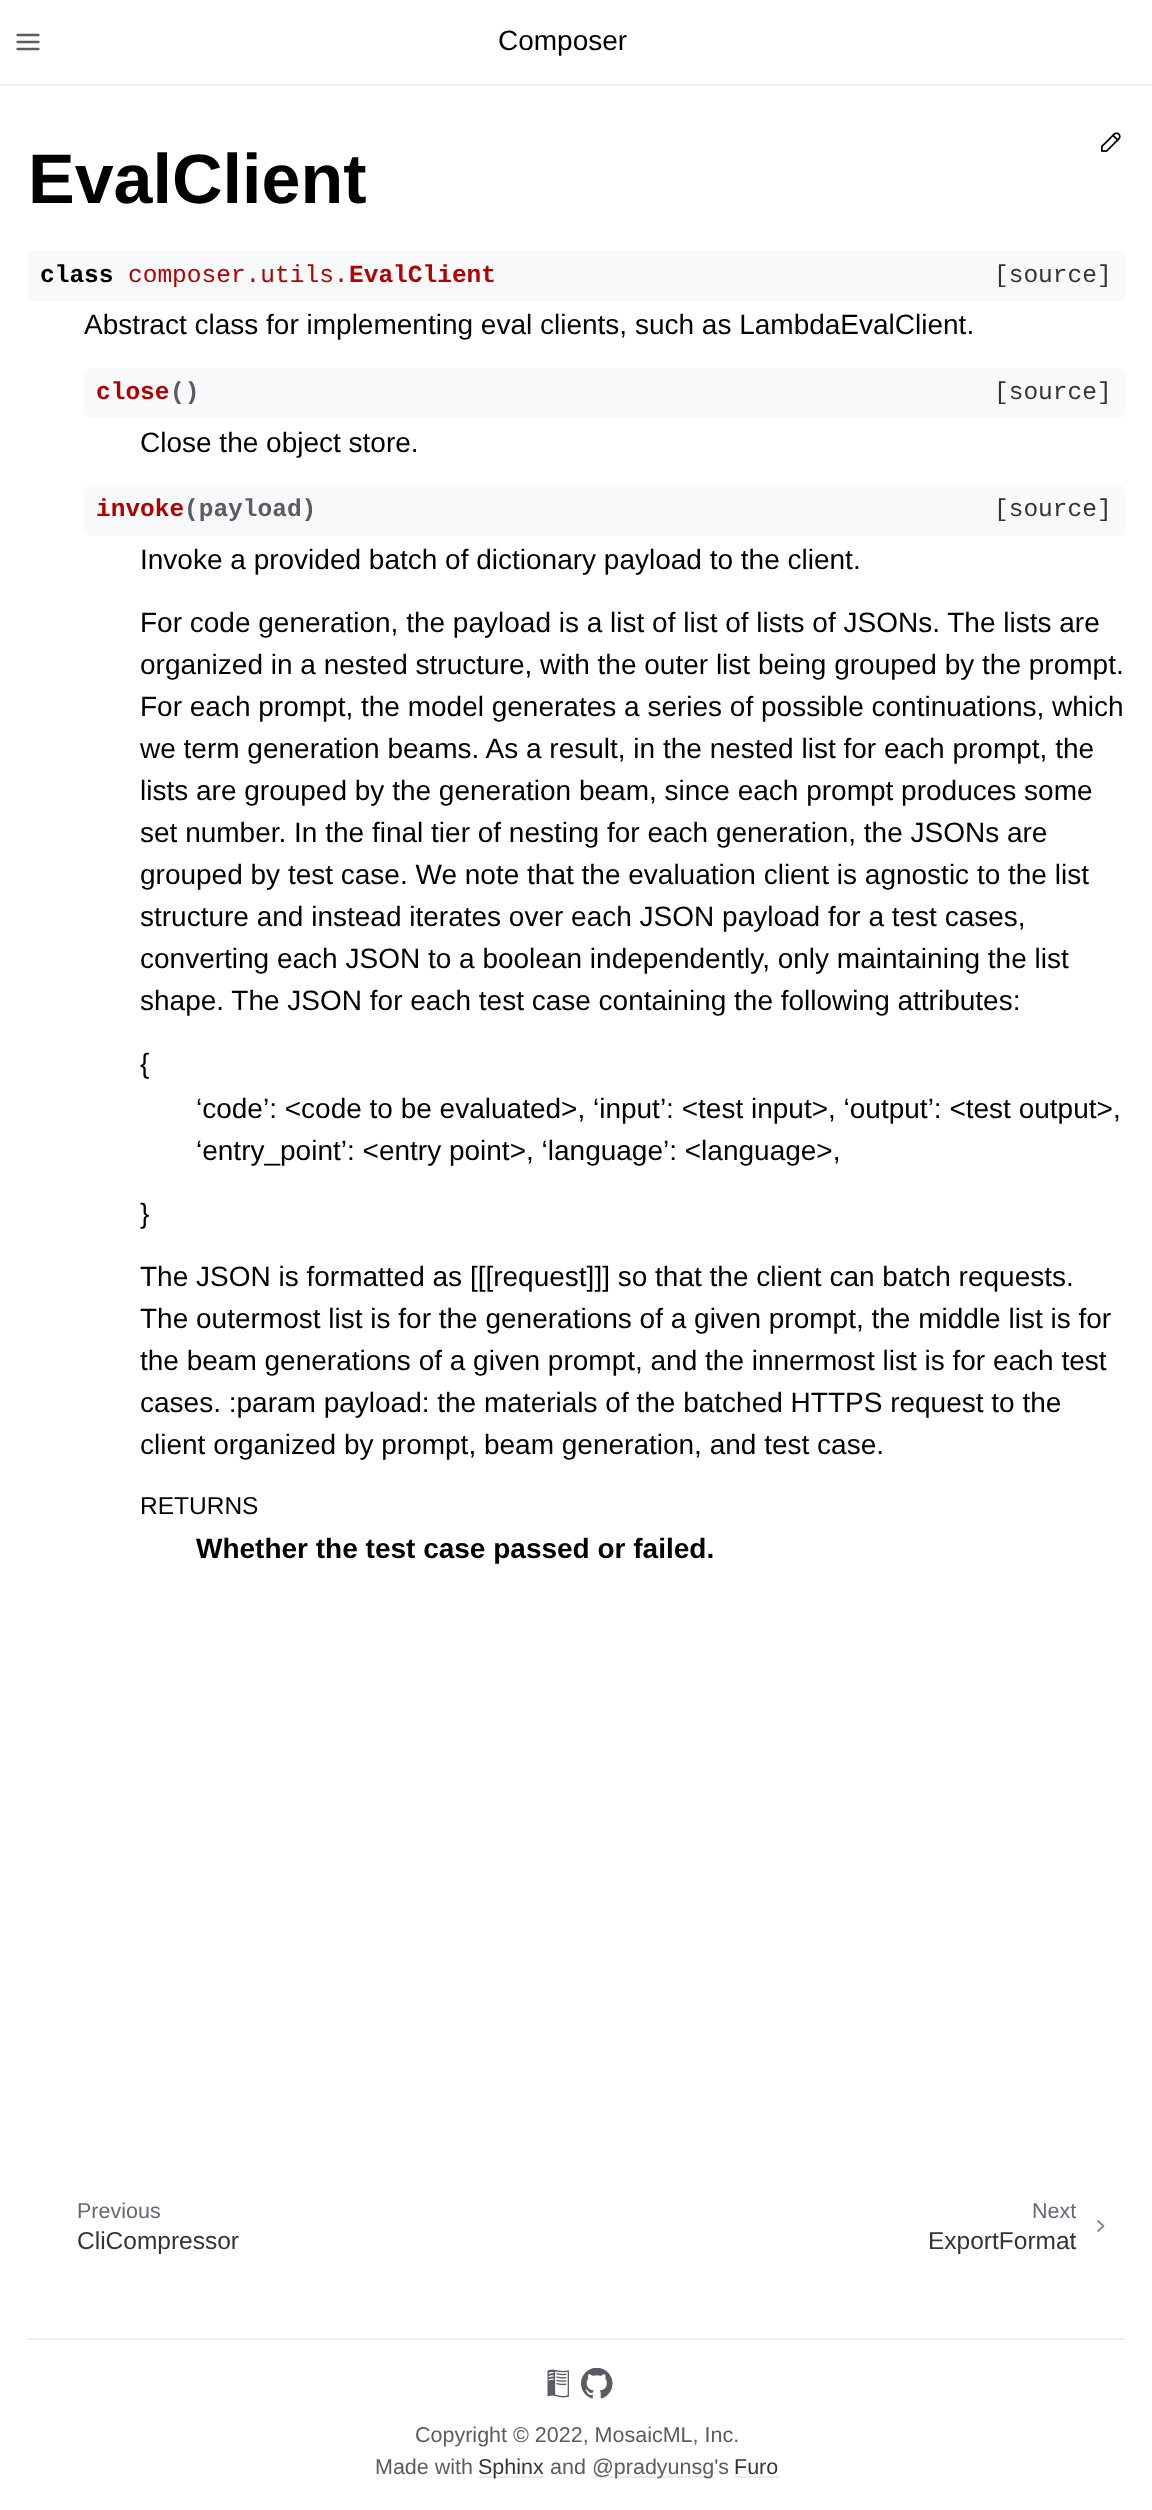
<svg xmlns="http://www.w3.org/2000/svg" width="1152" height="2510" viewBox="0 0 1152 2510">
  <rect width="100%" height="100%" fill="#fff"/>
  <path d="M0 84h1152v2H0z" fill="#eeebee"/>
  <path d="M17.5 42H38.5M17.5 35H38.5M17.5 49H38.5" fill="none" stroke="#5a5c63" stroke-width="2.3" stroke-linecap="round" stroke-linejoin="round"/>
  <image x="1101" y="132" width="20" height="20" href="img/1.png"/>
  <rect x="28" y="250" width="1097" height="51" rx="7" fill="#f8f9fb"/>
  <rect x="84" y="368" width="1041" height="50" rx="7" fill="#f8f9fb"/>
  <rect x="84" y="485" width="1041" height="51" rx="7" fill="#f8f9fb"/>
  <path d="M1098 2231L1103.5 2226L1098 2221" fill="none" stroke="#878787" stroke-width="1.8" stroke-linecap="round" stroke-linejoin="round"/>
  <path d="M28 2338h1097v2H28z" fill="#eeebee"/>
  <image x="547" y="2369" width="22" height="29" href="img/2.png"/>
  <image x="581" y="2368" width="32" height="31" href="img/3.png"/>
  <path d="M478 2476h66v2H478z" fill="#eeebee"/>
  <path d="M592 2476h122v2H592z" fill="#eeebee"/>
  <path d="M735 2476h44v2H735z" fill="#eeebee"/>
  <text x="498" y="50" font-family="Liberation Sans" font-size="28" fill="#000">Composer</text>
  <text x="28" y="203" font-family="Liberation Sans" font-size="70" font-weight="bold" fill="#000">EvalClient</text>
  <text x="40" y="282" font-family="Liberation Mono" font-size="24.5" font-weight="bold" fill="#000">class</text>
  <text x="128" y="282" font-family="Liberation Mono" font-size="24.5" fill="#b30000">composer.utils.</text>
  <text x="349" y="282" font-family="Liberation Mono" font-size="24.5" font-weight="bold" fill="#b30000">EvalClient</text>
  <text x="994" y="282" font-family="Liberation Mono" font-size="24.5" fill="#343434">[source]</text>
  <text x="84" y="334" font-family="Liberation Sans" font-size="28" fill="#000">Abstract class for implementing eval clients, such as LambdaEvalClient.</text>
  <text x="96" y="399" font-family="Liberation Mono" font-size="24.5" font-weight="bold" fill="#b30000">close</text>
  <text x="170" y="399" font-family="Liberation Mono" font-size="24.5" font-weight="bold" fill="#5a5c63">()</text>
  <text x="994" y="399" font-family="Liberation Mono" font-size="24.5" fill="#343434">[source]</text>
  <text x="140" y="452" font-family="Liberation Sans" font-size="28" fill="#000">Close the object store.</text>
  <text x="96" y="516" font-family="Liberation Mono" font-size="24.5" font-weight="bold" fill="#b30000">invoke</text>
  <text x="184" y="516" font-family="Liberation Mono" font-size="24.5" font-weight="bold" fill="#5a5c63">(payload)</text>
  <text x="994" y="516" font-family="Liberation Mono" font-size="24.5" fill="#343434">[source]</text>
  <g font-family="Liberation Sans" font-size="28" fill="#000">
    <text x="140" y="569">Invoke a provided batch of dictionary payload to the client.</text>
    <text x="140" y="632">For code generation, the payload is a list of list of lists of JSONs. The lists are</text>
    <text x="140" y="674">organized in a nested structure, with the outer list being grouped by the prompt.</text>
    <text x="140" y="716">For each prompt, the model generates a series of possible continuations, which</text>
    <text x="140" y="758">we term generation beams. As a result, in the nested list for each prompt, the</text>
    <text x="140" y="800">lists are grouped by the generation beam, since each prompt produces some</text>
    <text x="140" y="842">set number. In the final tier of nesting for each generation, the JSONs are</text>
    <text x="140" y="884">grouped by test case. We note that the evaluation client is agnostic to the list</text>
    <text x="140" y="926">structure and instead iterates over each JSON payload for a test cases,</text>
    <text x="140" y="968">converting each JSON to a boolean independently, only maintaining the list</text>
    <text x="140" y="1010">shape. The JSON for each test case containing the following attributes:</text>
    <text x="140" y="1073">{</text>
    <text x="196" y="1118">‘code’: &lt;code to be evaluated&gt;, ‘input’: &lt;test input&gt;, ‘output’: &lt;test output&gt;,</text>
    <text x="196" y="1160">‘entry_point’: &lt;entry point&gt;, ‘language’: &lt;language&gt;,</text>
    <text x="140" y="1223">}</text>
    <text x="140" y="1286">The JSON is formatted as [[[request]]] so that the client can batch requests.</text>
    <text x="140" y="1328">The outermost list is for the generations of a given prompt, the middle list is for</text>
    <text x="140" y="1370">the beam generations of a given prompt, and the innermost list is for each test</text>
    <text x="140" y="1412">cases. :param payload: the materials of the batched HTTPS request to the</text>
    <text x="140" y="1454">client organized by prompt, beam generation, and test case.</text>
  </g>
  <text x="140" y="1514" font-family="Liberation Sans" font-size="24.5" fill="#000">RETURNS</text>
  <text x="196" y="1558" font-family="Liberation Sans" font-size="28" font-weight="bold" fill="#000">Whether the test case passed or failed.</text>
  <text x="77" y="2218" font-family="Liberation Sans" font-size="21.5" fill="#646776">Previous</text>
  <text x="77" y="2249" font-family="Liberation Sans" font-size="24.5" fill="#343434">CliCompressor</text>
  <text x="1032" y="2218" font-family="Liberation Sans" font-size="21.5" fill="#646776">Next</text>
  <text x="928" y="2249" font-family="Liberation Sans" font-size="24.5" fill="#343434">ExportFormat</text>
  <g font-family="Liberation Sans" font-size="21.5" fill="#5a5c63">
    <text x="415" y="2442">Copyright © 2022, MosaicML, Inc.</text>
    <text x="375" y="2474">Made with</text>
  </g>
  <text x="478" y="2474" font-family="Liberation Sans" font-size="21.5" fill="#343434">Sphinx</text>
  <g font-family="Liberation Sans" font-size="21.5" fill="#5a5c63">
    <text x="550" y="2474">and</text>
    <text x="592" y="2474">@pradyunsg's</text>
  </g>
  <text x="734" y="2474" font-family="Liberation Sans" font-size="21.5" fill="#343434">Furo</text>
</svg>
